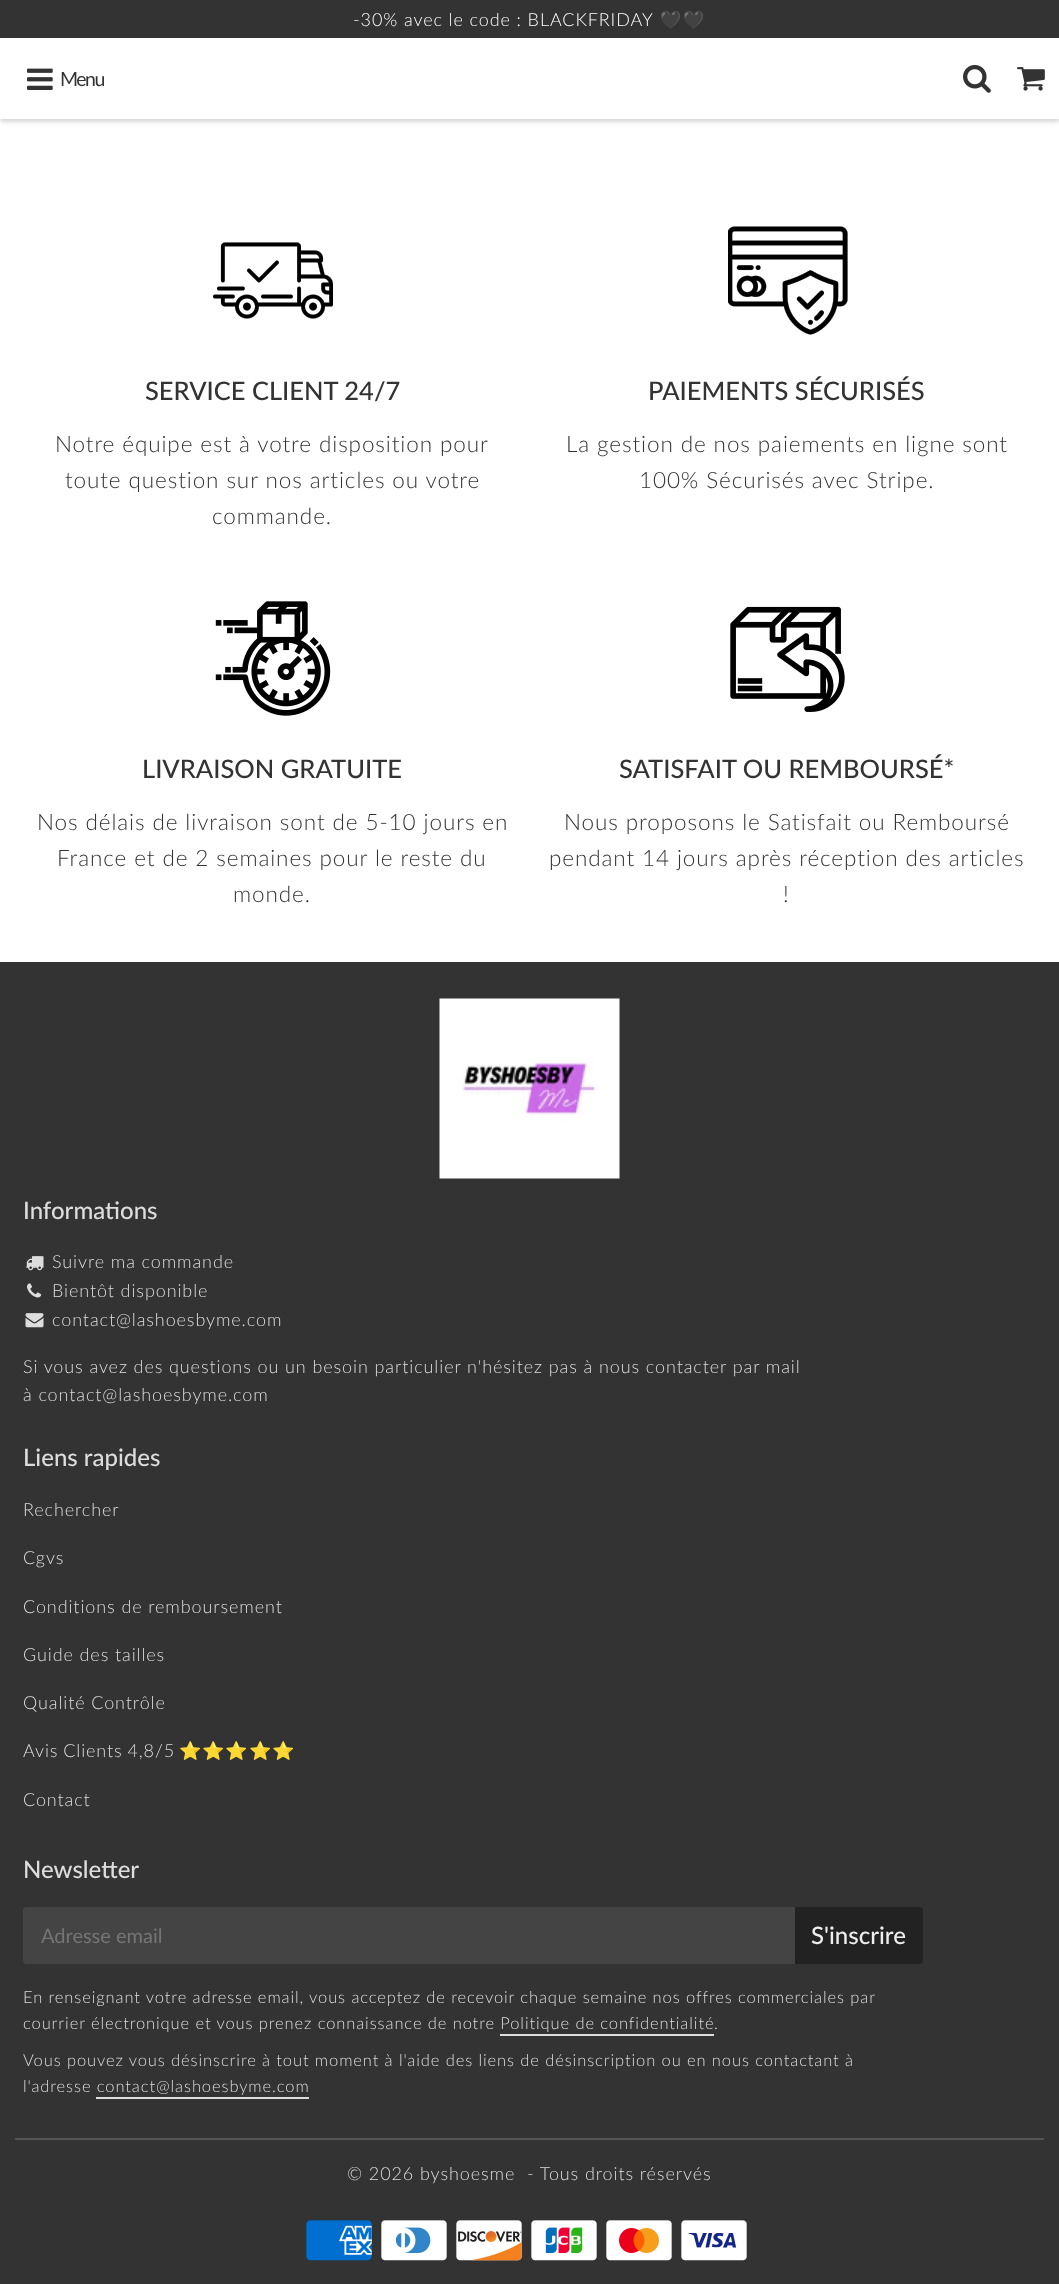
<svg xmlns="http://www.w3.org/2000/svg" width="1059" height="2284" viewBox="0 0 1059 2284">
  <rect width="100%" height="100%" fill="#fff"/>
  <path d="M0 3h1059v119H0z" fill="#0000000d" filter="blur(3px)"/>
  <path d="M0 41h1059v81H0z" fill="#0000001a" filter="blur(1.5px)"/>
  <path d="M0 0h1059v38H0z" fill="#333"/>
  <path d="M0 38h1059v81H0z" fill="#fff"/>
  <image x="27" y="68" width="26" height="22" href="img/1.png"/>
  <image x="963" y="64" width="28" height="29" href="img/2.png"/>
  <image x="1017" y="67" width="28" height="24" href="img/3.png"/>
  <image x="213" y="242" width="120" height="77" href="img/4.png"/>
  <image x="728" y="226" width="120" height="109" href="img/5.png"/>
  <image x="215" y="601" width="116" height="115" href="img/6.png"/>
  <image x="730" y="606" width="115" height="106" href="img/7.png"/>
  <path d="M0 962h1059v1322H0z" fill="#333"/>
  <image x="439" y="998" width="181" height="181" href="img/8.png"/>
  <image x="26" y="1256" width="18" height="15" href="img/9.png"/>
  <image x="27" y="1283" width="15" height="15" href="img/10.png"/>
  <image x="25" y="1313" width="19" height="15" href="img/11.png"/>
  <path d="M26 1907H795V1964H26C24.5 1964 23 1962.5 23 1961V1910C23 1908.5 24.5 1907 26 1907Z" fill="#444"/>
  <path d="M795 1907H920C921.5 1907 923 1908.5 923 1910V1961C923 1962.5 921.5 1964 920 1964H795Z" fill="#222"/>
  <path d="M500 2034h214v2H500z" fill="#ddd"/>
  <path d="M96 2097h213v2H96z" fill="#ddd"/>
  <path d="M15 2138h1029v2H15z" fill="#555"/>
  <image x="306" y="2220" width="66" height="41" href="img/12.png"/>
  <image x="381" y="2220" width="66" height="41" href="img/13.png"/>
  <image x="456" y="2220" width="66" height="41" href="img/14.png"/>
  <image x="531" y="2220" width="66" height="41" href="img/15.png"/>
  <image x="606" y="2220" width="66" height="41" href="img/16.png"/>
  <image x="681" y="2220" width="66" height="41" href="img/17.png"/>
  <text x="353" y="26" font-family="Lato" font-size="18" font-weight="300" letter-spacing="0.9" fill="#fff">-30% avec le code : BLACKFRIDAY</text>
  <text x="659" y="26" font-family="Noto Color Emoji" font-size="18" letter-spacing="0.9" fill="#fff">🖤🖤</text>
  <text x="60" y="86" font-family="Lato" font-size="19.5" letter-spacing="-1.5" fill="#333">Menu</text>
  <text x="145" y="400" font-family="Lato" font-size="25.5" font-weight="500" fill="#333">SERVICE CLIENT 24/7</text>
  <g font-family="Lato" font-size="22.5" font-weight="300" letter-spacing="0.9" fill="#333">
    <text x="55" y="452">Notre équipe est à votre disposition pour</text>
    <text x="65" y="488">toute question sur nos articles ou votre</text>
    <text x="212" y="524">commande.</text>
  </g>
  <text x="648" y="400" font-family="Lato" font-size="25.5" font-weight="500" fill="#333">PAIEMENTS SÉCURISÉS</text>
  <g font-family="Lato" font-size="22.5" font-weight="300" letter-spacing="0.9" fill="#333">
    <text x="566" y="452">La gestion de nos paiements en ligne sont</text>
    <text x="639" y="488">100% Sécurisés avec Stripe.</text>
  </g>
  <text x="142" y="778" font-family="Lato" font-size="25.5" font-weight="500" fill="#333">LIVRAISON GRATUITE</text>
  <g font-family="Lato" font-size="22.5" font-weight="300" letter-spacing="0.9" fill="#333">
    <text x="37" y="830">Nos délais de livraison sont de 5-10 jours en</text>
    <text x="57" y="866">France et de 2 semaines pour le reste du</text>
    <text x="233" y="902">monde.</text>
  </g>
  <text x="619" y="778" font-family="Lato" font-size="25.5" font-weight="500" fill="#333">SATISFAIT OU REMBOURSÉ*</text>
  <g font-family="Lato" font-size="22.5" font-weight="300" letter-spacing="0.9" fill="#333">
    <text x="564" y="830">Nous proposons le Satisfait ou Remboursé</text>
    <text x="549" y="866">pendant 14 jours après réception des articles</text>
    <text x="783" y="902">!</text>
  </g>
  <text x="23" y="1219" font-family="Lato" font-size="24" font-weight="500" fill="#ddd">Informations</text>
  <g font-family="Lato" font-size="18" font-weight="300" letter-spacing="0.9" fill="#ddd">
    <text x="52" y="1268">Suivre ma commande</text>
    <text x="52" y="1297">Bientôt disponible</text>
    <text x="52" y="1326">contact@lashoesbyme.com</text>
    <text x="23" y="1373">Si vous avez des questions ou un besoin particulier n'hésitez pas à nous contacter par mail</text>
    <text x="23" y="1401">à contact@lashoesbyme.com</text>
  </g>
  <text x="23" y="1466" font-family="Lato" font-size="24" font-weight="500" fill="#ddd">Liens rapides</text>
  <g font-family="Lato" font-size="18" font-weight="300" letter-spacing="0.9" fill="#ddd">
    <text x="23" y="1516">Rechercher</text>
    <text x="23" y="1564">Cgvs</text>
    <text x="23" y="1613">Conditions de remboursement</text>
    <text x="23" y="1661">Guide des tailles</text>
    <text x="23" y="1709">Qualité Contrôle</text>
    <text x="23" y="1757" word-spacing="-1">Avis Clients 4,8/5</text>
  </g>
  <text x="179" y="1757" font-family="Noto Color Emoji" font-size="18" letter-spacing="0.9" fill="#ddd">⭐️⭐️⭐️⭐️⭐️</text>
  <text x="23" y="1806" font-family="Lato" font-size="18" font-weight="300" letter-spacing="0.9" fill="#ddd">Contact</text>
  <text x="23" y="1878" font-family="Lato" font-size="24" font-weight="500" fill="#ddd">Newsletter</text>
  <text x="41" y="1943" font-family="Lato" font-size="20" fill="#757575">Adresse email</text>
  <text x="811" y="1944" font-family="Lato" font-size="24" font-weight="500" fill="#eee">S'inscrire</text>
  <g font-family="Lato" font-size="16.5" font-weight="300" letter-spacing="0.9" fill="#ddd">
    <text x="23" y="2003">En renseignant votre adresse email, vous acceptez de recevoir chaque semaine nos offres commerciales par</text>
    <text x="23" y="2029">courrier électronique et vous prenez connaissance de notre Politique de confidentialité</text>
    <text x="714" y="2029">.</text>
    <text x="23" y="2066">Vous pouvez vous désinscrire à tout moment à l'aide des liens de désinscription ou en nous contactant à</text>
    <text x="23" y="2092">l'adresse contact@lashoesbyme.com</text>
  </g>
  <g font-family="Lato" font-size="18" font-weight="300" letter-spacing="0.9" fill="#ddd">
    <text x="347" y="2180">© 2026 byshoesme</text>
    <text x="527" y="2180">- Tous droits réservés</text>
  </g>
</svg>
